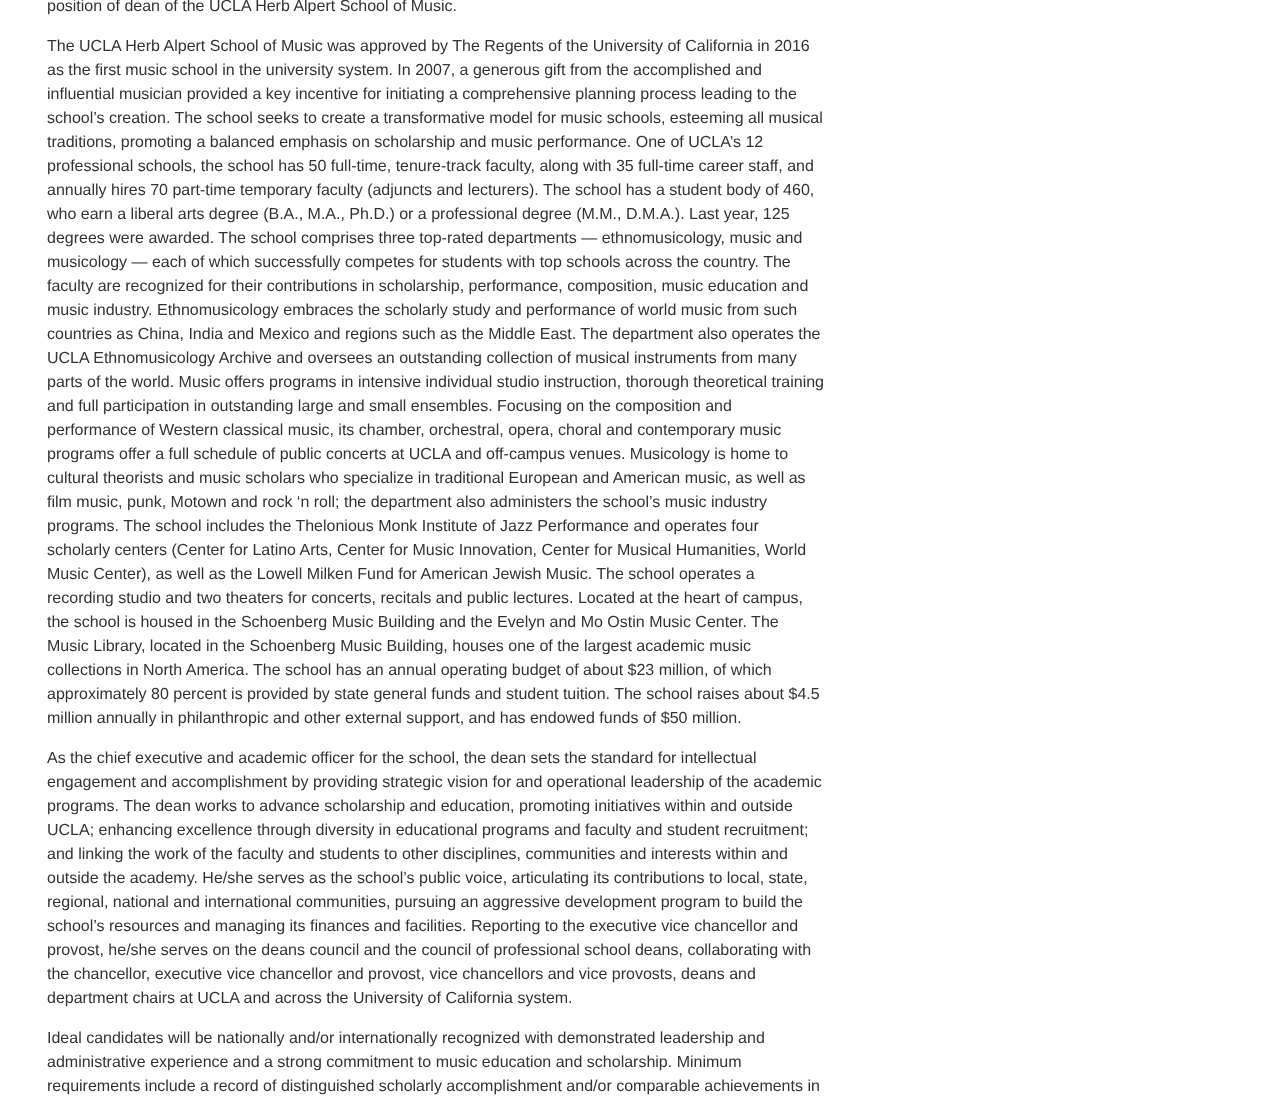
<svg xmlns="http://www.w3.org/2000/svg" width="1270" height="1101" viewBox="0 0 1270 1101">
  <rect width="100%" height="100%" fill="#fff"/>
  <g font-family="Liberation Sans" font-size="16" fill="#333">
    <text x="47" y="11">position of dean of the UCLA Herb Alpert School of Music.</text>
    <text x="47" y="51">The UCLA Herb Alpert School of Music was approved by The Regents of the University of California in 2016</text>
    <text x="47" y="75">as the first music school in the university system. In 2007, a generous gift from the accomplished and</text>
    <text x="47" y="99">influential musician provided a key incentive for initiating a comprehensive planning process leading to the</text>
    <text x="47" y="123">school’s creation. The school seeks to create a transformative model for music schools, esteeming all musical</text>
    <text x="47" y="147">traditions, promoting a balanced emphasis on scholarship and music performance. One of UCLA’s 12</text>
    <text x="47" y="171">professional schools, the school has 50 full-time, tenure-track faculty, along with 35 full-time career staff, and</text>
    <text x="47" y="195">annually hires 70 part-time temporary faculty (adjuncts and lecturers). The school has a student body of 460,</text>
    <text x="47" y="219">who earn a liberal arts degree (B.A., M.A., Ph.D.) or a professional degree (M.M., D.M.A.). Last year, 125</text>
    <text x="47" y="243">degrees were awarded. The school comprises three top-rated departments — ethnomusicology, music and</text>
    <text x="47" y="267">musicology — each of which successfully competes for students with top schools across the country. The</text>
    <text x="47" y="291">faculty are recognized for their contributions in scholarship, performance, composition, music education and</text>
    <text x="47" y="315">music industry. Ethnomusicology embraces the scholarly study and performance of world music from such</text>
    <text x="47" y="339">countries as China, India and Mexico and regions such as the Middle East. The department also operates the</text>
    <text x="47" y="363">UCLA Ethnomusicology Archive and oversees an outstanding collection of musical instruments from many</text>
    <text x="47" y="387">parts of the world. Music offers programs in intensive individual studio instruction, thorough theoretical training</text>
    <text x="47" y="411">and full participation in outstanding large and small ensembles. Focusing on the composition and</text>
    <text x="47" y="435">performance of Western classical music, its chamber, orchestral, opera, choral and contemporary music</text>
    <text x="47" y="459">programs offer a full schedule of public concerts at UCLA and off-campus venues. Musicology is home to</text>
    <text x="47" y="483">cultural theorists and music scholars who specialize in traditional European and American music, as well as</text>
    <text x="47" y="507">film music, punk, Motown and rock ‘n roll; the department also administers the school’s music industry</text>
    <text x="47" y="531">programs. The school includes the Thelonious Monk Institute of Jazz Performance and operates four</text>
    <text x="47" y="555">scholarly centers (Center for Latino Arts, Center for Music Innovation, Center for Musical Humanities, World</text>
    <text x="47" y="579">Music Center), as well as the Lowell Milken Fund for American Jewish Music. The school operates a</text>
    <text x="47" y="603">recording studio and two theaters for concerts, recitals and public lectures. Located at the heart of campus,</text>
    <text x="47" y="627">the school is housed in the Schoenberg Music Building and the Evelyn and Mo Ostin Music Center. The</text>
    <text x="47" y="651">Music Library, located in the Schoenberg Music Building, houses one of the largest academic music</text>
    <text x="47" y="675">collections in North America. The school has an annual operating budget of about $23 million, of which</text>
    <text x="47" y="699">approximately 80 percent is provided by state general funds and student tuition. The school raises about $4.5</text>
    <text x="47" y="723">million annually in philanthropic and other external support, and has endowed funds of $50 million.</text>
    <text x="47" y="763">As the chief executive and academic officer for the school, the dean sets the standard for intellectual</text>
    <text x="47" y="787">engagement and accomplishment by providing strategic vision for and operational leadership of the academic</text>
    <text x="47" y="811">programs. The dean works to advance scholarship and education, promoting initiatives within and outside</text>
    <text x="47" y="835">UCLA; enhancing excellence through diversity in educational programs and faculty and student recruitment;</text>
    <text x="47" y="859">and linking the work of the faculty and students to other disciplines, communities and interests within and</text>
    <text x="47" y="883">outside the academy. He/she serves as the school’s public voice, articulating its contributions to local, state,</text>
    <text x="47" y="907">regional, national and international communities, pursuing an aggressive development program to build the</text>
    <text x="47" y="931">school’s resources and managing its finances and facilities. Reporting to the executive vice chancellor and</text>
    <text x="47" y="955">provost, he/she serves on the deans council and the council of professional school deans, collaborating with</text>
    <text x="47" y="979">the chancellor, executive vice chancellor and provost, vice chancellors and vice provosts, deans and</text>
    <text x="47" y="1003">department chairs at UCLA and across the University of California system.</text>
    <text x="47" y="1043">Ideal candidates will be nationally and/or internationally recognized with demonstrated leadership and</text>
    <text x="47" y="1067">administrative experience and a strong commitment to music education and scholarship. Minimum</text>
    <text x="47" y="1091">requirements include a record of distinguished scholarly accomplishment and/or comparable achievements in</text>
  </g>
</svg>
